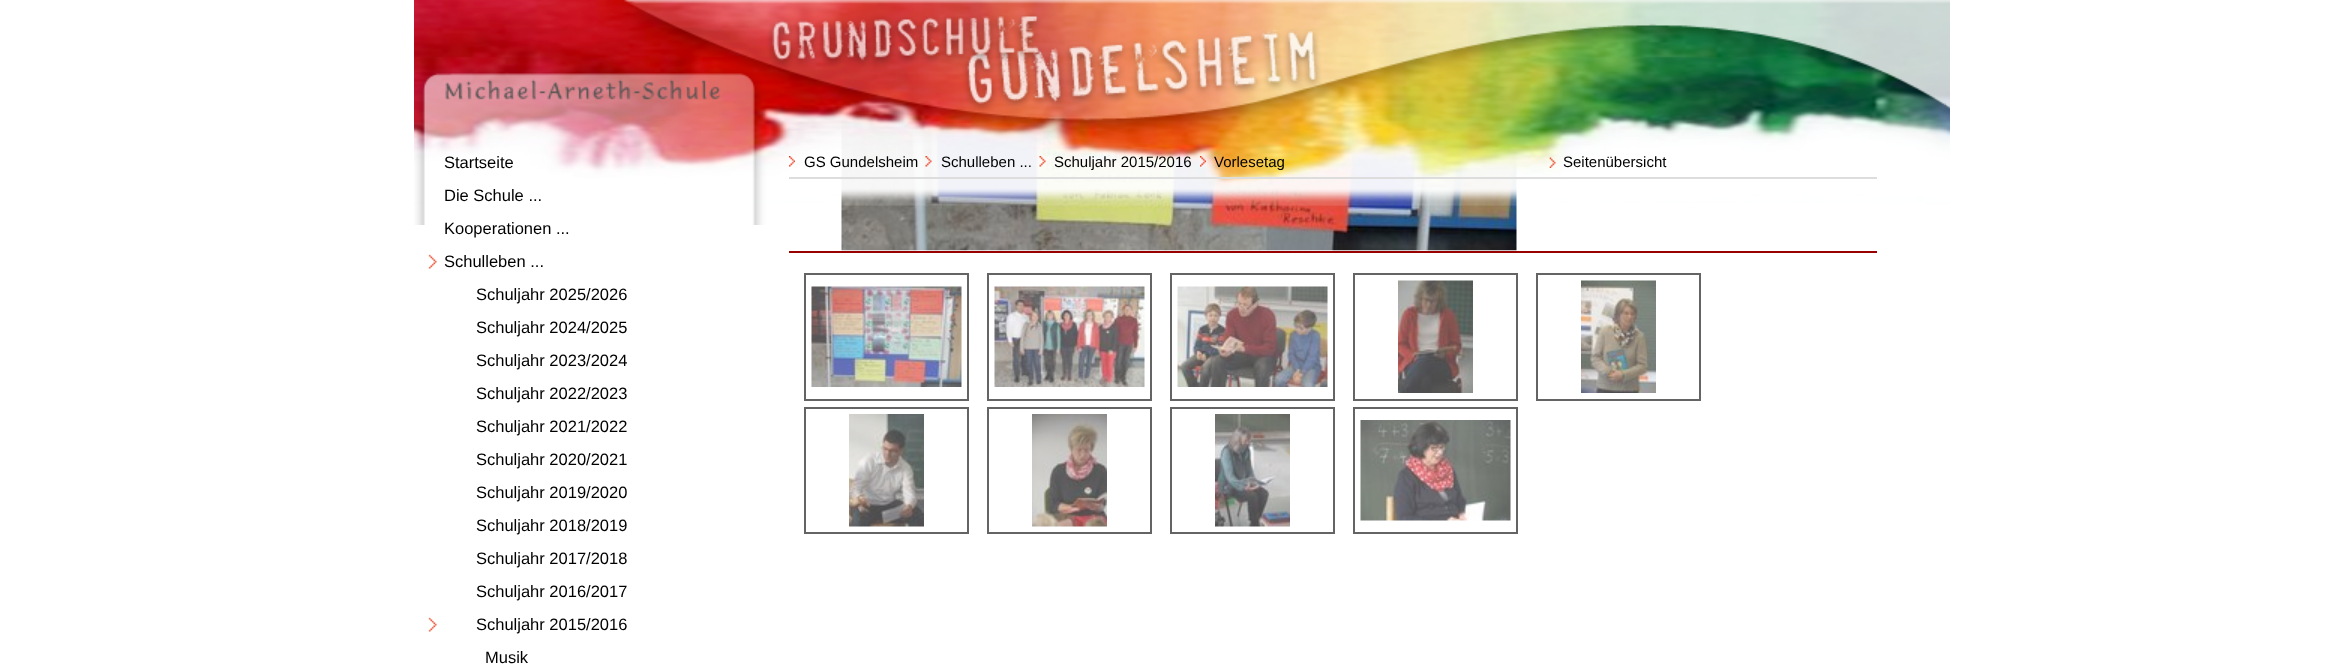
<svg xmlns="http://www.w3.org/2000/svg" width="2327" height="667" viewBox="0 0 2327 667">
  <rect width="100%" height="100%" fill="#fff"/>
  <image x="841" y="115" width="676" height="136" href="img/3.png"/>
  <image x="414" y="0" width="1536" height="225" href="img/1.png"/>
  <image x="428" y="254" width="9" height="15" href="img/2.png"/>
  <image x="428" y="617" width="9" height="15" href="img/2.png"/>
  <path d="M789 251h1088v2H789z" fill="#900"/>
  <image x="811" y="286" width="151" height="101" href="img/4.png"/>
  <path d="M805 274h163v126H805z" fill="none" stroke="#646464" stroke-width="2"/>
  <image x="994" y="286" width="151" height="101" href="img/5.png"/>
  <path d="M988 274h163v126H988z" fill="none" stroke="#646464" stroke-width="2"/>
  <image x="1177" y="286" width="151" height="101" href="img/6.png"/>
  <path d="M1171 274h163v126H1171z" fill="none" stroke="#646464" stroke-width="2"/>
  <image x="1398" y="280" width="75" height="113" href="img/7.png"/>
  <path d="M1354 274h163v126H1354z" fill="none" stroke="#646464" stroke-width="2"/>
  <image x="1581" y="280" width="75" height="113" href="img/8.png"/>
  <path d="M1537 274h163v126H1537z" fill="none" stroke="#646464" stroke-width="2"/>
  <image x="849" y="414" width="75" height="113" href="img/9.png"/>
  <path d="M805 408h163v125H805z" fill="none" stroke="#646464" stroke-width="2"/>
  <image x="1032" y="414" width="75" height="113" href="img/10.png"/>
  <path d="M988 408h163v125H988z" fill="none" stroke="#646464" stroke-width="2"/>
  <image x="1215" y="414" width="75" height="113" href="img/11.png"/>
  <path d="M1171 408h163v125H1171z" fill="none" stroke="#646464" stroke-width="2"/>
  <image x="1360" y="420" width="151" height="101" href="img/12.png"/>
  <path d="M1354 408h163v125H1354z" fill="none" stroke="#646464" stroke-width="2"/>
  <path d="M789 177h1088v2H789z" fill="#ddd"/>
  <image x="789" y="156" width="6" height="11" href="img/13.png"/>
  <image x="925" y="156" width="7" height="11" href="img/14.png"/>
  <image x="1039" y="156" width="7" height="11" href="img/15.png"/>
  <image x="1200" y="156" width="6" height="11" href="img/16.png"/>
  <image x="1549" y="157" width="7" height="11" href="img/17.png"/>
  <g font-family="Liberation Sans" font-size="16.5" fill="#000">
    <text x="444" y="168">Startseite</text>
    <text x="444" y="201">Die Schule ...</text>
    <text x="444" y="234">Kooperationen ...</text>
    <text x="444" y="267">Schulleben ...</text>
    <text x="476" y="300">Schuljahr 2025/2026</text>
    <text x="476" y="333">Schuljahr 2024/2025</text>
    <text x="476" y="366">Schuljahr 2023/2024</text>
    <text x="476" y="399">Schuljahr 2022/2023</text>
    <text x="476" y="432">Schuljahr 2021/2022</text>
    <text x="476" y="465">Schuljahr 2020/2021</text>
    <text x="476" y="498">Schuljahr 2019/2020</text>
    <text x="476" y="531">Schuljahr 2018/2019</text>
    <text x="476" y="564">Schuljahr 2017/2018</text>
    <text x="476" y="597">Schuljahr 2016/2017</text>
    <text x="476" y="630">Schuljahr 2015/2016</text>
    <text x="485" y="663">Musik</text>
  </g>
  <g font-family="Liberation Sans" font-size="15" fill="#000">
    <text x="804" y="167">GS Gundelsheim</text>
    <text x="941" y="167">Schulleben ...</text>
    <text x="1054" y="167">Schuljahr 2015/2016</text>
    <text x="1214" y="167">Vorlesetag</text>
    <text x="1563" y="167">Seitenübersicht</text>
  </g>
</svg>
